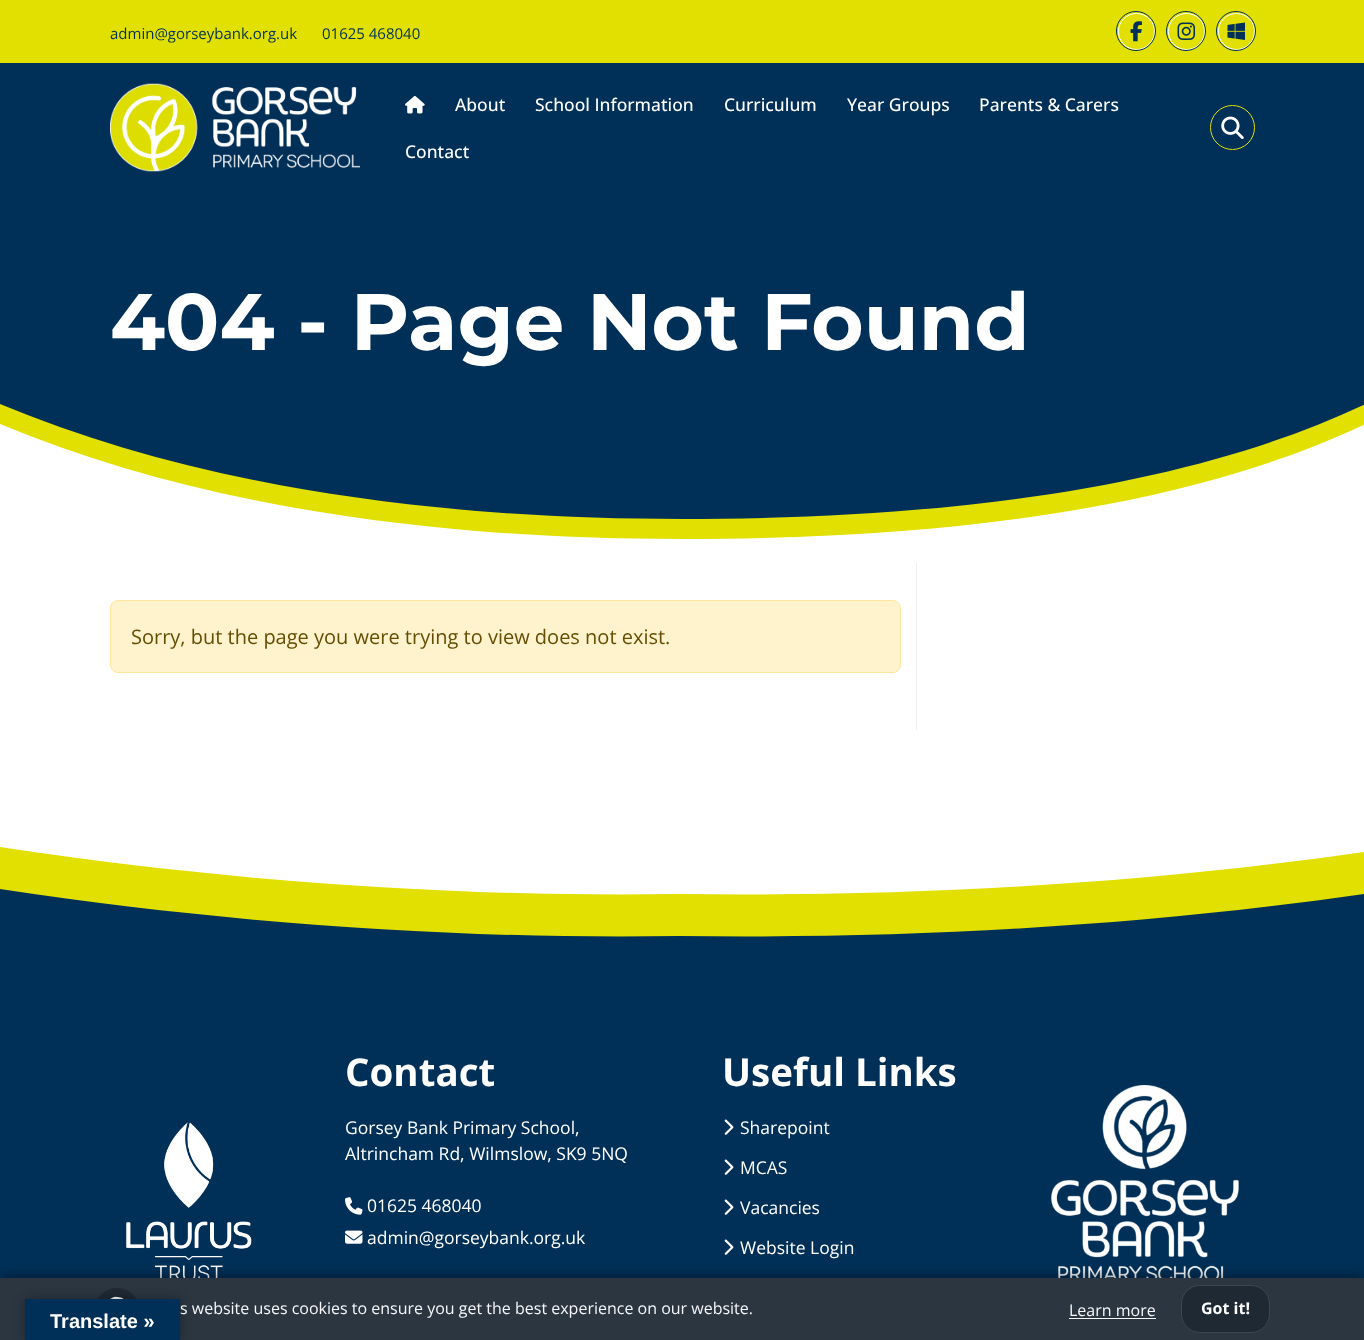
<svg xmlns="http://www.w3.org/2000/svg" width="1364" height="1340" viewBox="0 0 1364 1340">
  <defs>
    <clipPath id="clip1"><path d="M0 398h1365v165H0z"/></clipPath>
  </defs>
  <rect width="100%" height="100%" fill="#fff"/>
  <path d="M0 0h1364v63H0z" fill="#e1e000"/>
  <circle cx="1136.5" cy="31.5" r="18" fill="none" stroke="#fff"/>
  <image x="1130" y="21" width="12" height="21" href="img/1.png"/>
  <circle cx="1136" cy="31" r="19.5" fill="none" stroke="#003057"/>
  <circle cx="1186.5" cy="31.5" r="18" fill="none" stroke="#fff"/>
  <image x="1177" y="22" width="18" height="18" href="img/2.png"/>
  <circle cx="1186" cy="31" r="19.5" fill="none" stroke="#003057"/>
  <circle cx="1236.5" cy="31.5" r="18" fill="none" stroke="#fff"/>
  <image x="1227" y="22" width="18" height="18" href="img/3.png"/>
  <circle cx="1236" cy="31" r="19.5" fill="none" stroke="#003057"/>
  <path d="M0 63h1364v456H0z" fill="#003057"/>
  <image x="110" y="83" width="250" height="89" href="img/4.png"/>
  <image x="405" y="96" width="20" height="18" href="img/5.png"/>
  <circle cx="1232.5" cy="127.5" r="22" fill="none" stroke="#e1e000"/>
  <image x="1221" y="116" width="23" height="23" href="img/6.png"/>
  <path d="M-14 398V546H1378V398C1215 479 983 519 682 519C406 519 174 479-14 398Z" fill="#e1e000" fill-rule="evenodd"/>
  <g clip-path="url(#clip1)">
    <path d="M-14 418V566H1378V418C1215 499 983 539 682 539C406 539 174 499-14 418Z" fill="#fff" fill-rule="evenodd"/>
  </g>
  <path d="M916 563h1v167H916z" fill="#eee"/>
  <rect x="110.5" y="600.5" width="790" height="72" rx="7.5" fill="#fff3cd" stroke="#ffe69c"/>
  <path d="M0 980h1364v298H0z" fill="#003057"/>
  <path d="M-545 731V938H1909V731C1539 845 1129 900 679 894C279 900-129 845-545 731Z" fill="#e1e000" fill-rule="evenodd"/>
  <path d="M-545 773V980H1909V773C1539 887 1129 942 679 936C279 942-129 887-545 773Z" fill="#003057" fill-rule="evenodd"/>
  <image x="126" y="1122" width="126" height="156" href="img/7.png"/>
  <image x="345" y="1197" width="18" height="18" href="img/8.png"/>
  <image x="345" y="1230" width="18" height="14" href="img/9.png"/>
  <image x="724" y="1119" width="10" height="16" href="img/10.png"/>
  <image x="724" y="1159" width="10" height="16" href="img/10.png"/>
  <image x="724" y="1199" width="10" height="16" href="img/10.png"/>
  <image x="724" y="1239" width="10" height="16" href="img/10.png"/>
  <image x="1051" y="1085" width="188" height="193" href="img/11.png"/>
  <path d="M3 1274h1360v57H3z" fill="#0000004d" filter="blur(4.5px)"/>
  <path d="M0 1278h1364v62H0z" fill="#2b3641"/>
  <rect x="95" y="1288" width="44" height="43" rx="21.5" fill="#1f2933"/>
  <image x="110" y="1296" width="14" height="3" href="img/12.png"/>
  <path d="M25 1299h155v41H25z" fill="#0000004d" filter="blur(5.5px)"/>
  <path d="M25 1299h155v41H25z" fill="#003057"/>
  <path d="M1069 1318h87v1H1069z" fill="#f5f7fa"/>
  <rect x="1181.5" y="1285.5" width="88" height="47" rx="18.5" fill="#1f2933" stroke="#3a4753"/>
  <g font-family="Open Sans" font-size="15" fill="#003057">
    <text x="110" y="39">admin@gorseybank.org.uk</text>
    <text x="322" y="39">01625 468040</text>
  </g>
  <g font-family="Open Sans" font-size="17.5" font-weight="500" fill="#fff">
    <text x="455" y="111">About</text>
    <text x="535" y="111">School Information</text>
    <text x="724" y="111">Curriculum</text>
    <text x="847" y="111">Year Groups</text>
    <text x="979" y="111">Parents &amp; Carers</text>
    <text x="405" y="158">Contact</text>
  </g>
  <text x="110" y="350" font-family="Montserrat" font-size="80" font-weight="bold" fill="#fff">404 - Page Not Found</text>
  <text x="131" y="644" font-family="Open Sans" font-size="20" fill="#664d03">Sorry, but the page you were trying to view does not exist.</text>
  <text x="345" y="1086" font-family="Open Sans" font-size="38.5" font-weight="bold" fill="#fff">Contact</text>
  <g font-family="Open Sans" font-size="17.5" fill="#fff">
    <text x="345" y="1134">Gorsey Bank Primary School,</text>
    <text x="345" y="1160">Altrincham Rd, Wilmslow, SK9 5NQ</text>
    <text x="367" y="1212">01625 468040</text>
    <text x="367" y="1244">admin@gorseybank.org.uk</text>
  </g>
  <text x="722" y="1086" font-family="Open Sans" font-size="38.5" font-weight="bold" fill="#fff">Useful Links</text>
  <g font-family="Open Sans" font-size="17.5" fill="#fff">
    <text x="740" y="1134">Sharepoint</text>
    <text x="740" y="1174">MCAS</text>
    <text x="740" y="1214">Vacancies</text>
    <text x="740" y="1254">Website Login</text>
  </g>
  <text x="50" y="1328" font-family="Liberation Sans" font-size="20" font-weight="bold" fill="#fff">Translate »</text>
  <g font-family="Open Sans" font-size="16" fill="#f5f7fa">
    <text x="180" y="1314">s website uses cookies to ensure you get the best experience on our website.</text>
    <text x="1069" y="1316">Learn more</text>
  </g>
  <text x="1201" y="1314" font-family="Open Sans" font-size="16" font-weight="bold" fill="#fff">Got it!</text>
</svg>
